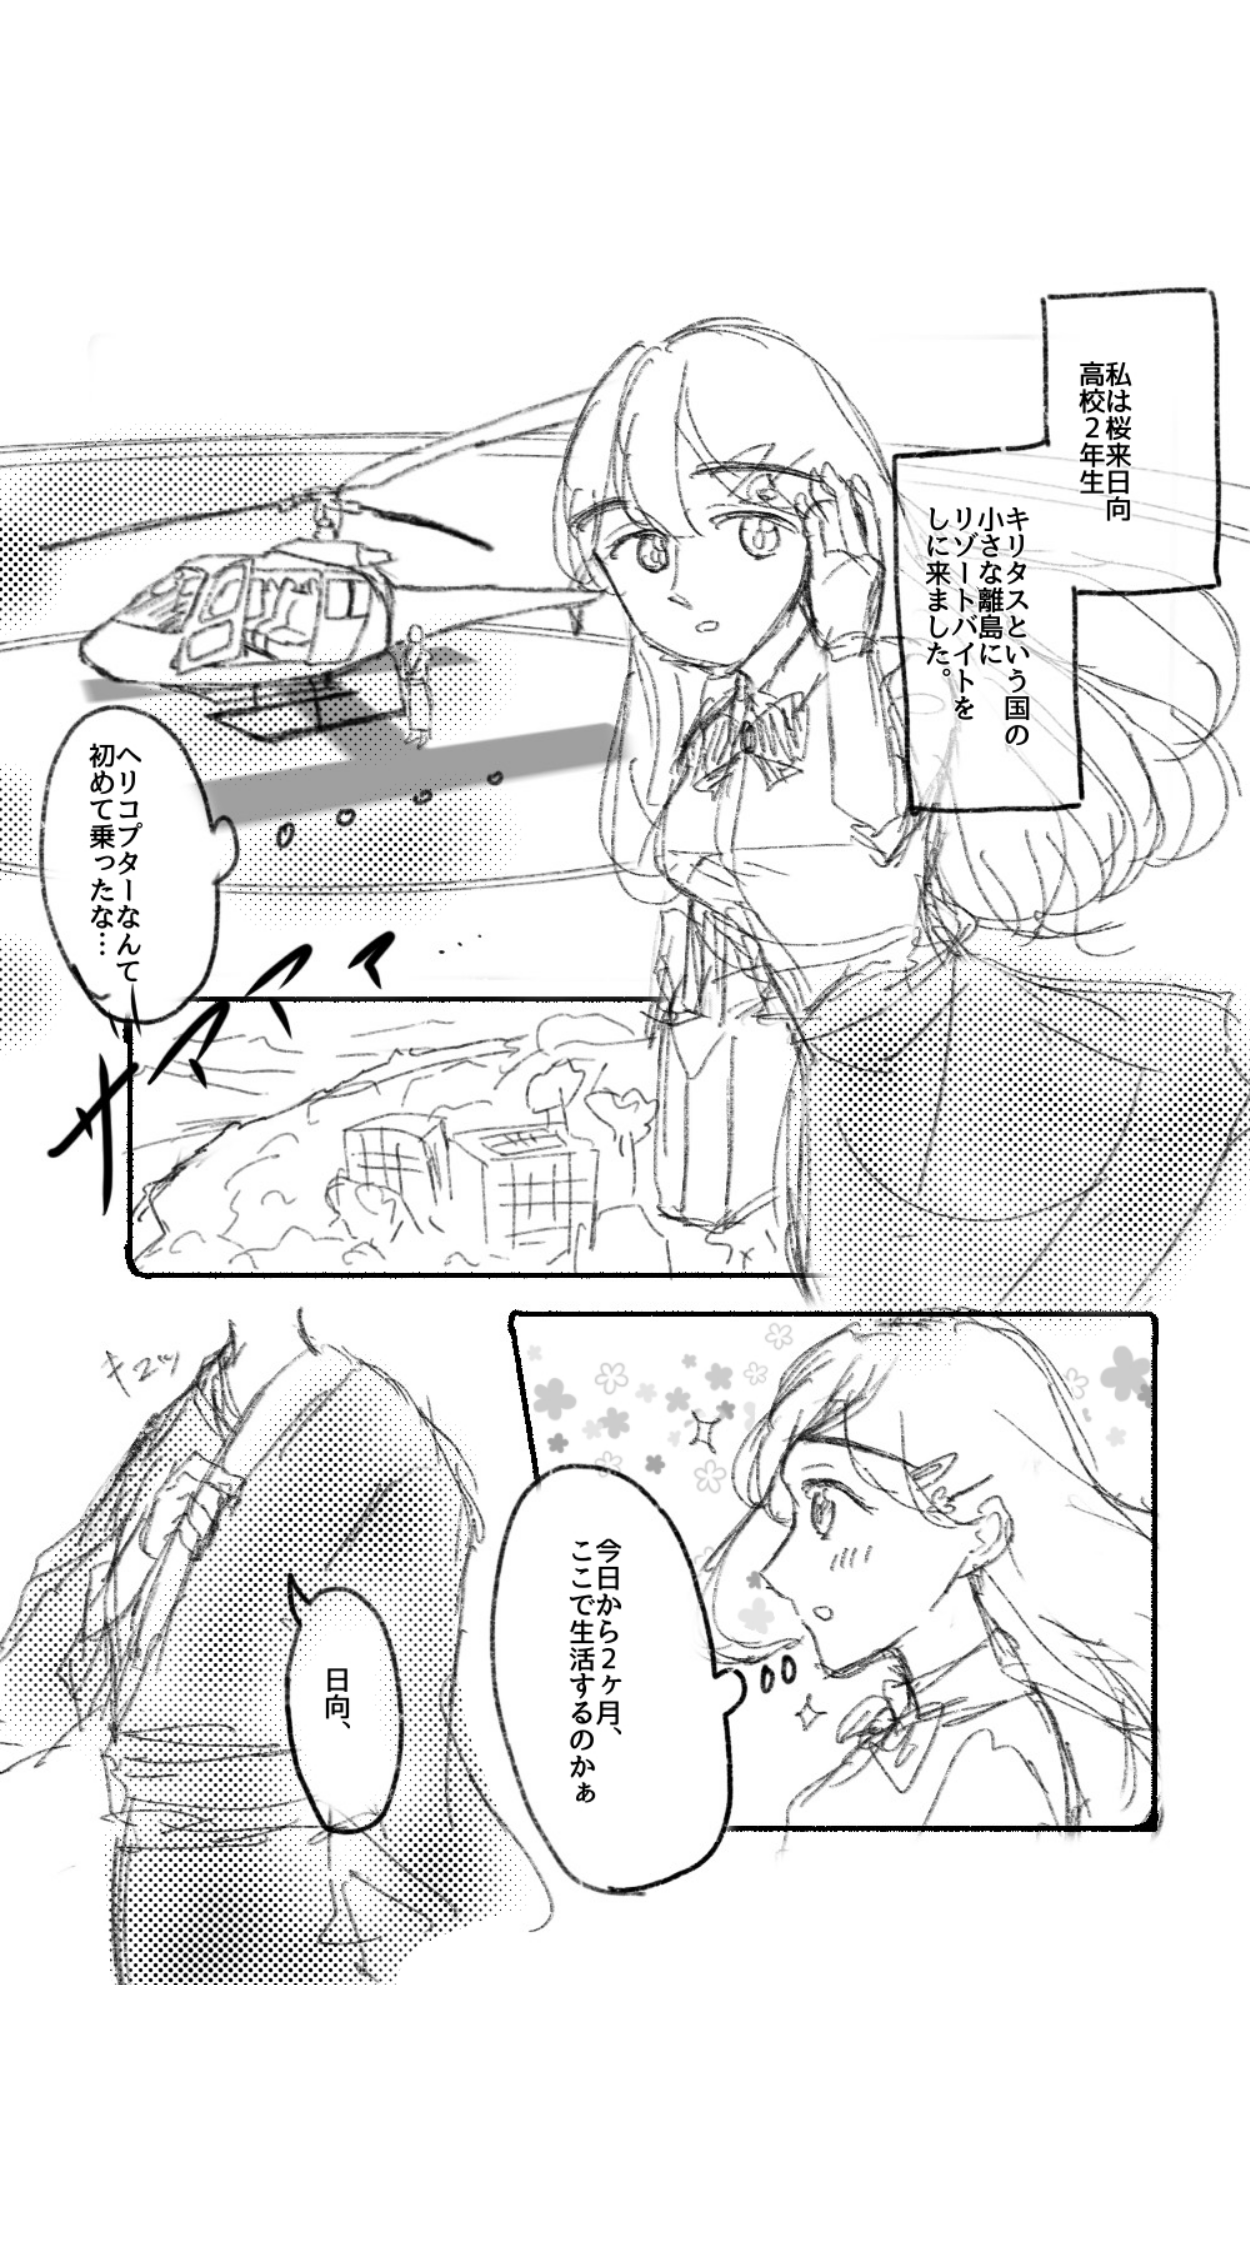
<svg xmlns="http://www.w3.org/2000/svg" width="1250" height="2245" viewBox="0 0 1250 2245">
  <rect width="100%" height="100%" fill="#fff"/>
  <image x="0" y="281" width="1250" height="1704" href="img/1.png"/>
</svg>
